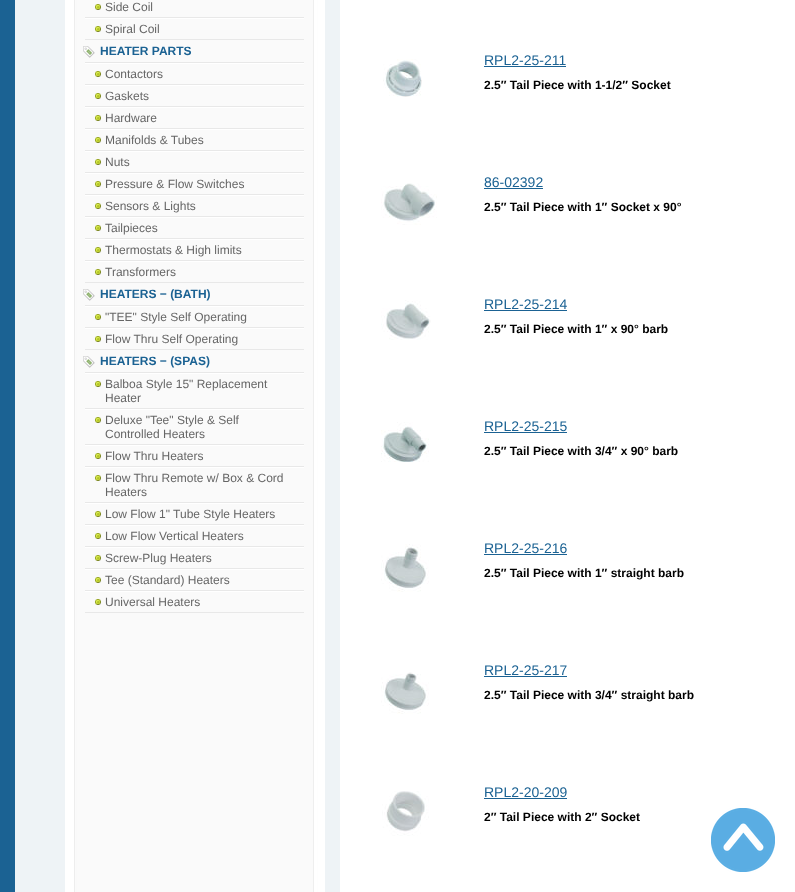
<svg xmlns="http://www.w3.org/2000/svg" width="795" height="892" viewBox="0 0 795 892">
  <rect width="100%" height="100%" fill="#eef3f6"/>
  <image x="65" y="0" width="260" height="892" href="img/1.png"/>
  <path d="M0 0h15v892H0z" fill="#1b6293"/>
  <path d="M85 17h219v1H85z" fill="#e8e8e8"/>
  <image x="95" y="4" width="6" height="6" href="img/2.png"/>
  <path d="M85 18h219v1H85z" fill="#fff"/>
  <path d="M85 39h219v1H85z" fill="#e8e8e8"/>
  <image x="95" y="26" width="6" height="6" href="img/2.png"/>
  <image x="83" y="46" width="12" height="12" href="img/3.png"/>
  <path d="M85 62h219v1H85z" fill="#e8e8e8"/>
  <path d="M85 63h219v1H85z" fill="#fff"/>
  <path d="M85 84h219v1H85z" fill="#e8e8e8"/>
  <image x="95" y="71" width="6" height="6" href="img/2.png"/>
  <path d="M85 85h219v1H85z" fill="#fff"/>
  <path d="M85 106h219v1H85z" fill="#e8e8e8"/>
  <image x="95" y="93" width="6" height="6" href="img/2.png"/>
  <path d="M85 107h219v1H85z" fill="#fff"/>
  <path d="M85 128h219v1H85z" fill="#e8e8e8"/>
  <image x="95" y="115" width="6" height="6" href="img/2.png"/>
  <path d="M85 129h219v1H85z" fill="#fff"/>
  <path d="M85 150h219v1H85z" fill="#e8e8e8"/>
  <image x="95" y="137" width="6" height="6" href="img/2.png"/>
  <path d="M85 151h219v1H85z" fill="#fff"/>
  <path d="M85 172h219v1H85z" fill="#e8e8e8"/>
  <image x="95" y="159" width="6" height="6" href="img/2.png"/>
  <path d="M85 173h219v1H85z" fill="#fff"/>
  <path d="M85 194h219v1H85z" fill="#e8e8e8"/>
  <image x="95" y="181" width="6" height="6" href="img/2.png"/>
  <path d="M85 195h219v1H85z" fill="#fff"/>
  <path d="M85 216h219v1H85z" fill="#e8e8e8"/>
  <image x="95" y="203" width="6" height="6" href="img/2.png"/>
  <path d="M85 217h219v1H85z" fill="#fff"/>
  <path d="M85 238h219v1H85z" fill="#e8e8e8"/>
  <image x="95" y="225" width="6" height="6" href="img/2.png"/>
  <path d="M85 239h219v1H85z" fill="#fff"/>
  <path d="M85 260h219v1H85z" fill="#e8e8e8"/>
  <image x="95" y="247" width="6" height="6" href="img/2.png"/>
  <path d="M85 261h219v1H85z" fill="#fff"/>
  <path d="M85 282h219v1H85z" fill="#e8e8e8"/>
  <image x="95" y="269" width="6" height="6" href="img/2.png"/>
  <image x="83" y="289" width="12" height="12" href="img/3.png"/>
  <path d="M85 305h219v1H85z" fill="#e8e8e8"/>
  <path d="M85 306h219v1H85z" fill="#fff"/>
  <path d="M85 327h219v1H85z" fill="#e8e8e8"/>
  <image x="95" y="314" width="6" height="6" href="img/2.png"/>
  <path d="M85 328h219v1H85z" fill="#fff"/>
  <path d="M85 349h219v1H85z" fill="#e8e8e8"/>
  <image x="95" y="336" width="6" height="6" href="img/2.png"/>
  <image x="83" y="356" width="12" height="12" href="img/3.png"/>
  <path d="M85 372h219v1H85z" fill="#e8e8e8"/>
  <path d="M85 373h219v1H85z" fill="#fff"/>
  <path d="M85 408h219v1H85z" fill="#e8e8e8"/>
  <image x="95" y="381" width="6" height="6" href="img/2.png"/>
  <path d="M85 409h219v1H85z" fill="#fff"/>
  <path d="M85 444h219v1H85z" fill="#e8e8e8"/>
  <image x="95" y="417" width="6" height="6" href="img/2.png"/>
  <path d="M85 445h219v1H85z" fill="#fff"/>
  <path d="M85 466h219v1H85z" fill="#e8e8e8"/>
  <image x="95" y="453" width="6" height="6" href="img/2.png"/>
  <path d="M85 467h219v1H85z" fill="#fff"/>
  <path d="M85 502h219v1H85z" fill="#e8e8e8"/>
  <image x="95" y="475" width="6" height="6" href="img/2.png"/>
  <path d="M85 503h219v1H85z" fill="#fff"/>
  <path d="M85 524h219v1H85z" fill="#e8e8e8"/>
  <image x="95" y="511" width="6" height="6" href="img/2.png"/>
  <path d="M85 525h219v1H85z" fill="#fff"/>
  <path d="M85 546h219v1H85z" fill="#e8e8e8"/>
  <image x="95" y="533" width="6" height="6" href="img/2.png"/>
  <path d="M85 547h219v1H85z" fill="#fff"/>
  <path d="M85 568h219v1H85z" fill="#e8e8e8"/>
  <image x="95" y="555" width="6" height="6" href="img/2.png"/>
  <path d="M85 569h219v1H85z" fill="#fff"/>
  <path d="M85 590h219v1H85z" fill="#e8e8e8"/>
  <image x="95" y="577" width="6" height="6" href="img/2.png"/>
  <path d="M85 591h219v1H85z" fill="#fff"/>
  <path d="M85 612h219v1H85z" fill="#e8e8e8"/>
  <image x="95" y="599" width="6" height="6" href="img/2.png"/>
  <path d="M340 0h455v892H340z" fill="#fff"/>
  <image x="383" y="59" width="39" height="38" href="img/4.png"/>
  <path d="M484 66h82v1H484z" fill="#1b6293"/>
  <image x="381" y="183" width="56" height="42" href="img/5.png"/>
  <path d="M484 188h59v1H484z" fill="#1b6293"/>
  <image x="381" y="300" width="50" height="40" href="img/6.png"/>
  <path d="M484 310h83v1H484z" fill="#1b6293"/>
  <image x="381" y="422" width="48" height="40" href="img/7.png"/>
  <path d="M484 432h83v1H484z" fill="#1b6293"/>
  <image x="381" y="544" width="48" height="48" href="img/8.png"/>
  <path d="M484 554h83v1H484z" fill="#1b6293"/>
  <image x="381" y="672" width="48" height="42" href="img/9.png"/>
  <path d="M484 676h83v1H484z" fill="#1b6293"/>
  <image x="382" y="791" width="47" height="45" href="img/10.png"/>
  <path d="M484 798h83v1H484z" fill="#1b6293"/>
  <image x="711" y="808" width="64" height="64" href="img/11.png"/>
  <g font-family="Liberation Sans" font-size="12" fill="#666">
    <text x="105" y="11">Side Coil</text>
    <text x="105" y="33">Spiral Coil</text>
  </g>
  <text x="100" y="55" font-family="Liberation Sans" font-size="12" font-weight="bold" fill="#1b6293">HEATER PARTS</text>
  <g font-family="Liberation Sans" font-size="12" fill="#666">
    <text x="105" y="78">Contactors</text>
    <text x="105" y="100">Gaskets</text>
    <text x="105" y="122">Hardware</text>
    <text x="105" y="144">Manifolds &amp; Tubes</text>
    <text x="105" y="166">Nuts</text>
    <text x="105" y="188">Pressure &amp; Flow Switches</text>
    <text x="105" y="210">Sensors &amp; Lights</text>
    <text x="105" y="232">Tailpieces</text>
    <text x="105" y="254">Thermostats &amp; High limits</text>
    <text x="105" y="276">Transformers</text>
  </g>
  <text x="100" y="298" font-family="Liberation Sans" font-size="12" font-weight="bold" fill="#1b6293">HEATERS − (BATH)</text>
  <g font-family="Liberation Sans" font-size="12" fill="#666">
    <text x="105" y="321">"TEE" Style Self Operating</text>
    <text x="105" y="343">Flow Thru Self Operating</text>
  </g>
  <text x="100" y="365" font-family="Liberation Sans" font-size="12" font-weight="bold" fill="#1b6293">HEATERS − (SPAS)</text>
  <g font-family="Liberation Sans" font-size="12" fill="#666">
    <text x="105" y="388">Balboa Style 15" Replacement</text>
    <text x="105" y="402">Heater</text>
    <text x="105" y="424">Deluxe "Tee" Style &amp; Self</text>
    <text x="105" y="438">Controlled Heaters</text>
    <text x="105" y="460">Flow Thru Heaters</text>
    <text x="105" y="482">Flow Thru Remote w/ Box &amp; Cord</text>
    <text x="105" y="496">Heaters</text>
    <text x="105" y="518">Low Flow 1" Tube Style Heaters</text>
    <text x="105" y="540">Low Flow Vertical Heaters</text>
    <text x="105" y="562">Screw-Plug Heaters</text>
    <text x="105" y="584">Tee (Standard) Heaters</text>
    <text x="105" y="606">Universal Heaters</text>
  </g>
  <text x="484" y="65" font-family="Liberation Sans" font-size="14" fill="#1b6293">RPL2-25-211</text>
  <text x="484" y="89" font-family="Liberation Sans" font-size="12" font-weight="bold" fill="#000">2.5″ Tail Piece with 1-1/2″ Socket</text>
  <text x="484" y="187" font-family="Liberation Sans" font-size="14" fill="#1b6293">86-02392</text>
  <text x="484" y="211" font-family="Liberation Sans" font-size="12" font-weight="bold" fill="#000">2.5″ Tail Piece with 1″ Socket x 90°</text>
  <text x="484" y="309" font-family="Liberation Sans" font-size="14" fill="#1b6293">RPL2-25-214</text>
  <text x="484" y="333" font-family="Liberation Sans" font-size="12" font-weight="bold" fill="#000">2.5″ Tail Piece with 1″ x 90° barb</text>
  <text x="484" y="431" font-family="Liberation Sans" font-size="14" fill="#1b6293">RPL2-25-215</text>
  <text x="484" y="455" font-family="Liberation Sans" font-size="12" font-weight="bold" fill="#000">2.5″ Tail Piece with 3/4″ x 90° barb</text>
  <text x="484" y="553" font-family="Liberation Sans" font-size="14" fill="#1b6293">RPL2-25-216</text>
  <text x="484" y="577" font-family="Liberation Sans" font-size="12" font-weight="bold" fill="#000">2.5″ Tail Piece with 1″ straight barb</text>
  <text x="484" y="675" font-family="Liberation Sans" font-size="14" fill="#1b6293">RPL2-25-217</text>
  <text x="484" y="699" font-family="Liberation Sans" font-size="12" font-weight="bold" fill="#000">2.5″ Tail Piece with 3/4″ straight barb</text>
  <text x="484" y="797" font-family="Liberation Sans" font-size="14" fill="#1b6293">RPL2-20-209</text>
  <text x="484" y="821" font-family="Liberation Sans" font-size="12" font-weight="bold" fill="#000">2″ Tail Piece with 2″ Socket</text>
</svg>
